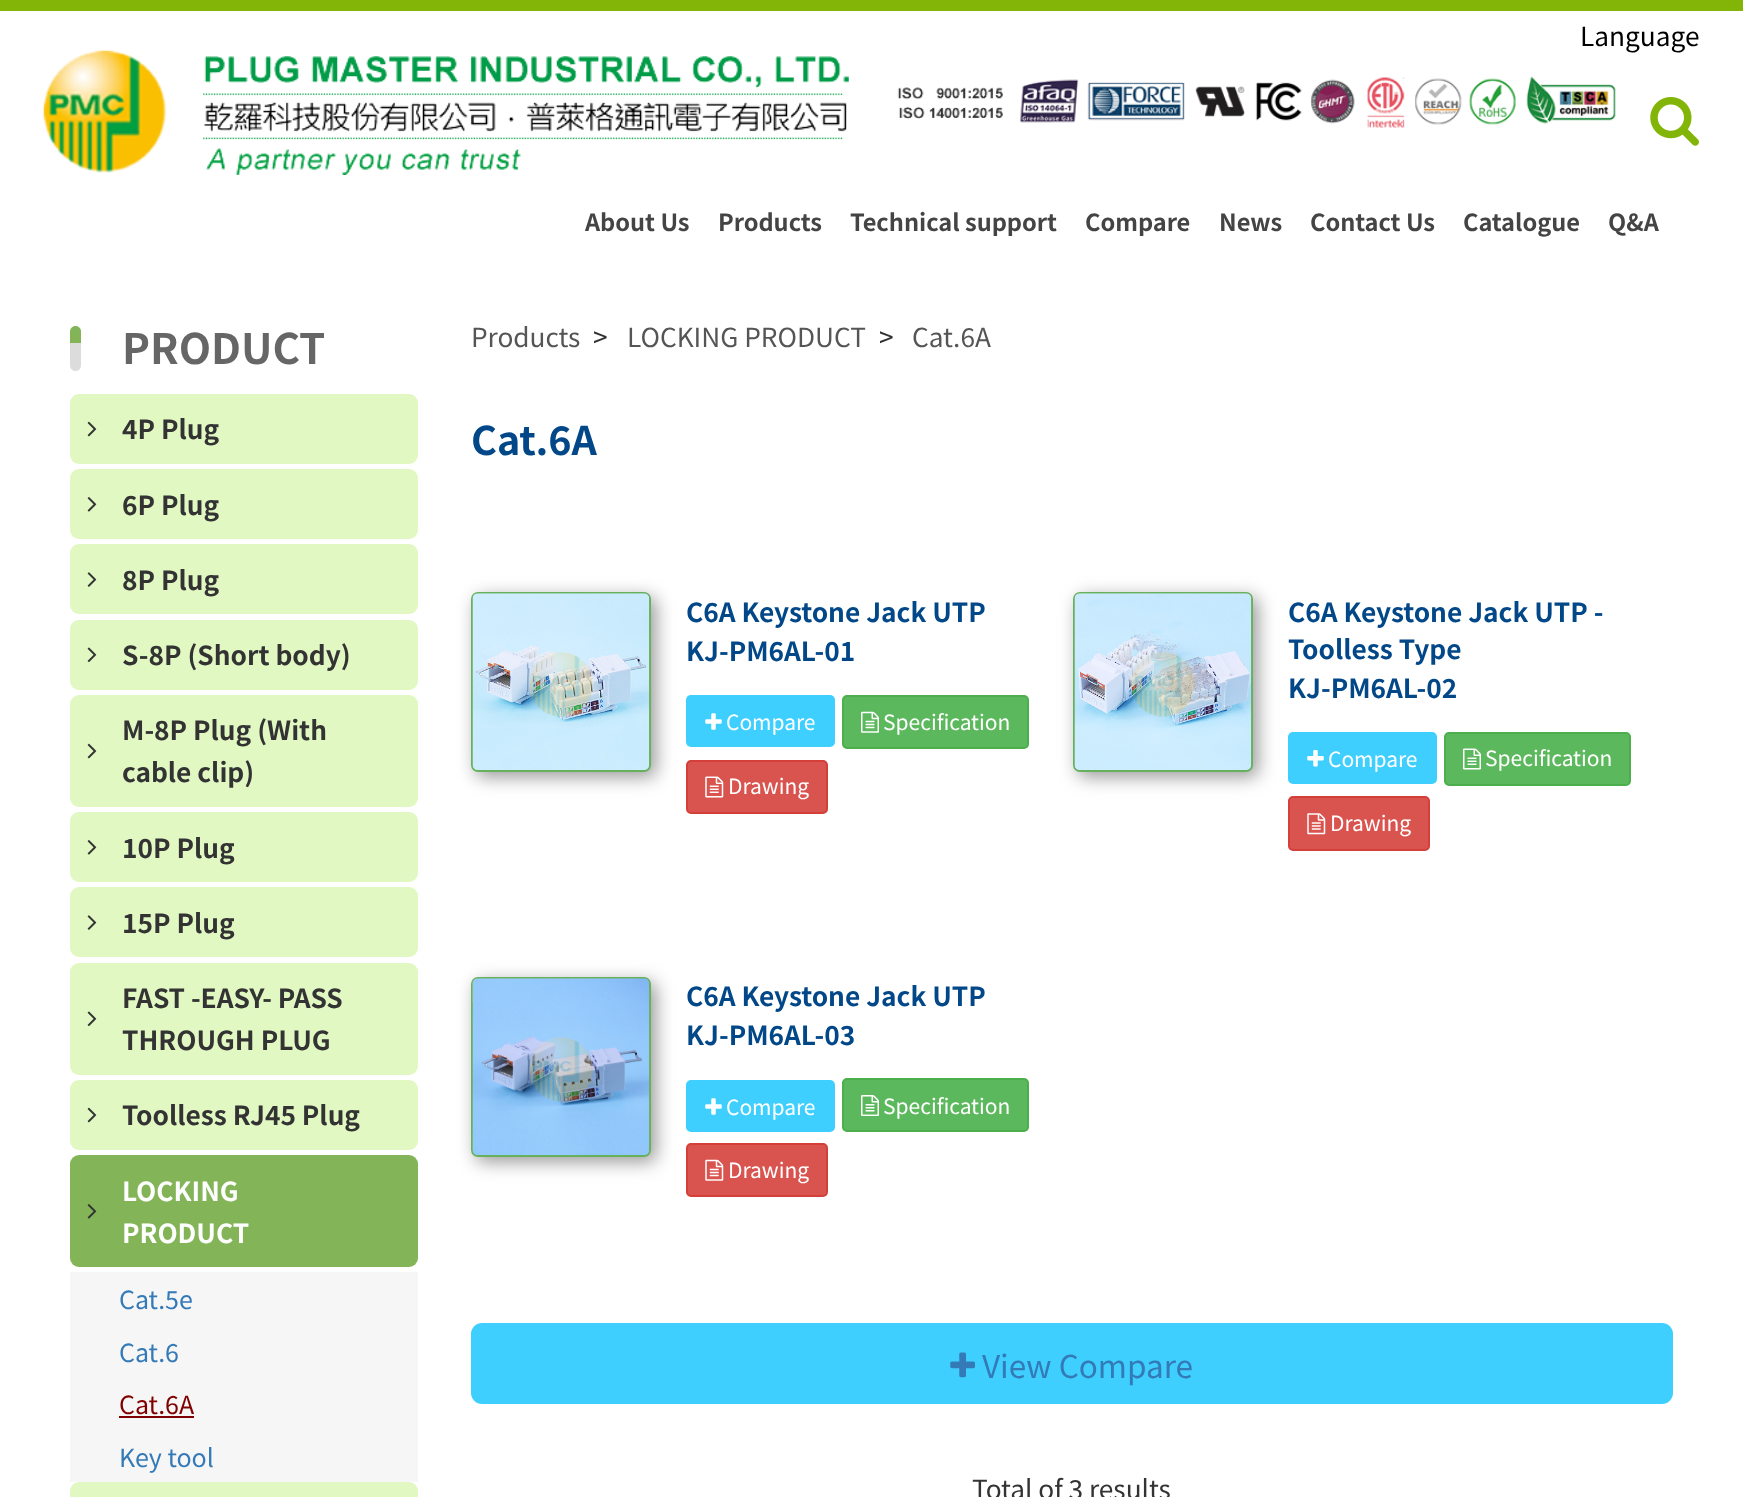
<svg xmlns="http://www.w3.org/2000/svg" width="1743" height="1497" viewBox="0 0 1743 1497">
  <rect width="100%" height="100%" fill="#fff"/>
  <path d="M0 0h1743v11H0z" fill="#83b509"/>
  <image x="43" y="50" width="806" height="125" href="img/1.png"/>
  <image x="897" y="76" width="719" height="52" href="img/2.png"/>
  <image x="1650" y="97" width="49" height="49" href="img/3.png"/>
  <rect x="70" y="326" width="11" height="45" rx="5.5" fill="#dcdcdc"/>
  <path d="M75.5 326C78.5 326 81 328.5 81 331.5V343H70V331.5C70 328.5 72.5 326 75.5 326Z" fill="#83b558"/>
  <rect x="70" y="394" width="348" height="70" rx="9" fill="#e1f8c2"/>
  <image x="87" y="421" width="10" height="16" href="img/4.png"/>
  <rect x="70" y="469" width="348" height="70" rx="9" fill="#e1f8c2"/>
  <image x="87" y="497" width="10" height="15" href="img/5.png"/>
  <rect x="70" y="544" width="348" height="70" rx="9" fill="#e1f8c2"/>
  <image x="87" y="572" width="10" height="15" href="img/6.png"/>
  <rect x="70" y="620" width="348" height="70" rx="9" fill="#e1f8c2"/>
  <image x="87" y="647" width="10" height="16" href="img/7.png"/>
  <rect x="70" y="695" width="348" height="112" rx="9" fill="#e1f8c2"/>
  <image x="87" y="743" width="10" height="16" href="img/4.png"/>
  <rect x="70" y="812" width="348" height="70" rx="9" fill="#e1f8c2"/>
  <image x="87" y="840" width="10" height="15" href="img/5.png"/>
  <rect x="70" y="887" width="348" height="70" rx="9" fill="#e1f8c2"/>
  <image x="87" y="915" width="10" height="15" href="img/6.png"/>
  <rect x="70" y="963" width="348" height="112" rx="9" fill="#e1f8c2"/>
  <image x="87" y="1011" width="10" height="16" href="img/7.png"/>
  <rect x="70" y="1080" width="348" height="70" rx="9" fill="#e1f8c2"/>
  <image x="87" y="1107" width="10" height="16" href="img/4.png"/>
  <rect x="70" y="1155" width="348" height="112" rx="9" fill="#83b558"/>
  <image x="87" y="1204" width="10" height="15" href="img/8.png"/>
  <path d="M70 1272h348v210H70z" fill="#f6f6f6"/>
  <path d="M119 1416h75v2H119z" fill="#800000"/>
  <rect x="70" y="1482" width="348" height="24" rx="9" fill="#e1f8c2"/>
  <rect x="476" y="597" width="180" height="180" rx="7" fill="#999" filter="blur(9px)"/>
  <rect x="472" y="593" width="178" height="178" rx="6" fill="none" stroke="#67b15c" stroke-width="2"/>
  <image x="472" y="593" width="178" height="177" href="img/9.png"/>
  <image x="529" y="652" width="64" height="65" href="img/10.png"/>
  <rect x="686" y="695" width="149" height="52" rx="5" fill="#3ecfff"/>
  <image x="705" y="713" width="17" height="17" href="img/11.png"/>
  <rect x="843" y="696" width="185" height="52" rx="4" fill="#5cb85c" stroke="#4cae4c" stroke-width="2"/>
  <image x="861" y="711" width="18" height="22" href="img/12.png"/>
  <rect x="687" y="761" width="140" height="52" rx="4" fill="#d9534f" stroke="#d43f3a" stroke-width="2"/>
  <image x="705" y="776" width="19" height="22" href="img/13.png"/>
  <rect x="1078" y="597" width="180" height="180" rx="7" fill="#999" filter="blur(9px)"/>
  <rect x="1074" y="593" width="178" height="178" rx="6" fill="none" stroke="#67b15c" stroke-width="2"/>
  <image x="1074" y="593" width="178" height="177" href="img/14.png"/>
  <image x="1131" y="652" width="64" height="65" href="img/15.png"/>
  <rect x="1288" y="732" width="149" height="52" rx="5" fill="#3ecfff"/>
  <image x="1307" y="750" width="17" height="17" href="img/16.png"/>
  <rect x="1445" y="733" width="185" height="52" rx="4" fill="#5cb85c" stroke="#4cae4c" stroke-width="2"/>
  <image x="1463" y="748" width="18" height="22" href="img/17.png"/>
  <rect x="1289" y="797" width="140" height="53" rx="4" fill="#d9534f" stroke="#d43f3a" stroke-width="2"/>
  <image x="1307" y="813" width="19" height="22" href="img/18.png"/>
  <rect x="476" y="982" width="180" height="180" rx="7" fill="#999" filter="blur(9px)"/>
  <rect x="472" y="978" width="178" height="178" rx="6" fill="none" stroke="#67b15c" stroke-width="2"/>
  <image x="472" y="978" width="178" height="177" href="img/19.png"/>
  <image x="529" y="1037" width="64" height="65" href="img/20.png"/>
  <rect x="686" y="1080" width="149" height="52" rx="5" fill="#3ecfff"/>
  <image x="705" y="1098" width="17" height="17" href="img/11.png"/>
  <rect x="843" y="1079" width="185" height="52" rx="4" fill="#5cb85c" stroke="#4cae4c" stroke-width="2"/>
  <image x="861" y="1095" width="18" height="21" href="img/21.png"/>
  <rect x="687" y="1144" width="140" height="52" rx="4" fill="#d9534f" stroke="#d43f3a" stroke-width="2"/>
  <image x="705" y="1159" width="19" height="22" href="img/22.png"/>
  <rect x="471" y="1323" width="1202" height="81" rx="11" fill="#3ecfff"/>
  <image x="950" y="1352" width="25" height="26" href="img/23.png"/>
  <text x="1580" y="46" font-family="Noto Sans TC" font-size="26.25" fill="#000">Language</text>
  <g font-family="Noto Sans TC" font-size="23.6" font-weight="bold" fill="#444">
    <text x="585" y="231">About Us</text>
    <text x="718" y="231">Products</text>
    <text x="850" y="231">Technical support</text>
    <text x="1085" y="231">Compare</text>
    <text x="1219" y="231">News</text>
    <text x="1310" y="231">Contact Us</text>
    <text x="1463" y="231">Catalogue</text>
    <text x="1608" y="231">Q&amp;A</text>
  </g>
  <text x="122" y="364" font-family="Noto Sans TC" font-size="42" font-weight="bold" fill="#666">PRODUCT</text>
  <g font-family="Noto Sans TC" font-size="26.25" font-weight="bold" fill="#333">
    <text x="122" y="439">4P Plug</text>
    <text x="122" y="515">6P Plug</text>
    <text x="122" y="590">8P Plug</text>
    <text x="122" y="665">S-8P (Short body)</text>
    <text x="122" y="740">M-8P Plug (With</text>
    <text x="122" y="782">cable clip)</text>
    <text x="122" y="858">10P Plug</text>
    <text x="122" y="933">15P Plug</text>
    <text x="122" y="1008">FAST -EASY- PASS</text>
    <text x="122" y="1050">THROUGH PLUG</text>
    <text x="122" y="1125">Toolless RJ45 Plug</text>
  </g>
  <g font-family="Noto Sans TC" font-size="26.25" font-weight="bold" fill="#fff">
    <text x="122" y="1201">LOCKING</text>
    <text x="122" y="1243">PRODUCT</text>
  </g>
  <g font-family="Noto Sans TC" font-size="25" fill="#337ab7">
    <text x="119" y="1309">Cat.5e</text>
    <text x="119" y="1362">Cat.6</text>
  </g>
  <text x="119" y="1414" font-family="Noto Sans TC" font-size="25" fill="#800000">Cat.6A</text>
  <text x="119" y="1467" font-family="Noto Sans TC" font-size="25" fill="#337ab7">Key tool</text>
  <text x="471" y="347" font-family="Noto Sans TC" font-size="26.25" fill="#555">Products</text>
  <text x="593" y="347" font-family="Noto Sans TC" font-size="26.25" fill="#333">&gt;</text>
  <text x="627" y="347" font-family="Noto Sans TC" font-size="26.25" fill="#555">LOCKING PRODUCT</text>
  <text x="879" y="347" font-family="Noto Sans TC" font-size="26.25" fill="#333">&gt;</text>
  <text x="912" y="347" font-family="Noto Sans TC" font-size="26.25" fill="#555">Cat.6A</text>
  <text x="471" y="455" font-family="Noto Sans TC" font-size="39.5" font-weight="bold" fill="#024888">Cat.6A</text>
  <g font-family="Noto Sans TC" font-size="26.25" font-weight="bold" fill="#024888">
    <text x="686" y="622">C6A Keystone Jack UTP</text>
    <text x="686" y="661">KJ-PM6AL-01</text>
  </g>
  <g font-family="Noto Sans TC" font-size="21" fill="#fff">
    <text x="726" y="730">Compare</text>
    <text x="883" y="730">Specification</text>
    <text x="728" y="794">Drawing</text>
  </g>
  <g font-family="Noto Sans TC" font-size="26.25" font-weight="bold" fill="#024888">
    <text x="1288" y="622">C6A Keystone Jack UTP -</text>
    <text x="1288" y="659">Toolless Type</text>
    <text x="1288" y="698">KJ-PM6AL-02</text>
  </g>
  <g font-family="Noto Sans TC" font-size="21" fill="#fff">
    <text x="1328" y="767">Compare</text>
    <text x="1485" y="766">Specification</text>
    <text x="1330" y="831">Drawing</text>
  </g>
  <g font-family="Noto Sans TC" font-size="26.25" font-weight="bold" fill="#024888">
    <text x="686" y="1006">C6A Keystone Jack UTP</text>
    <text x="686" y="1045">KJ-PM6AL-03</text>
  </g>
  <g font-family="Noto Sans TC" font-size="21" fill="#fff">
    <text x="726" y="1115">Compare</text>
    <text x="883" y="1114">Specification</text>
    <text x="728" y="1178">Drawing</text>
  </g>
  <text x="982" y="1378" font-family="Noto Sans TC" font-size="31.5" fill="#337ab7">View Compare</text>
  <text x="972" y="1499" font-family="Noto Sans TC" font-size="26.25" fill="#333">Total of 3 results</text>
</svg>
